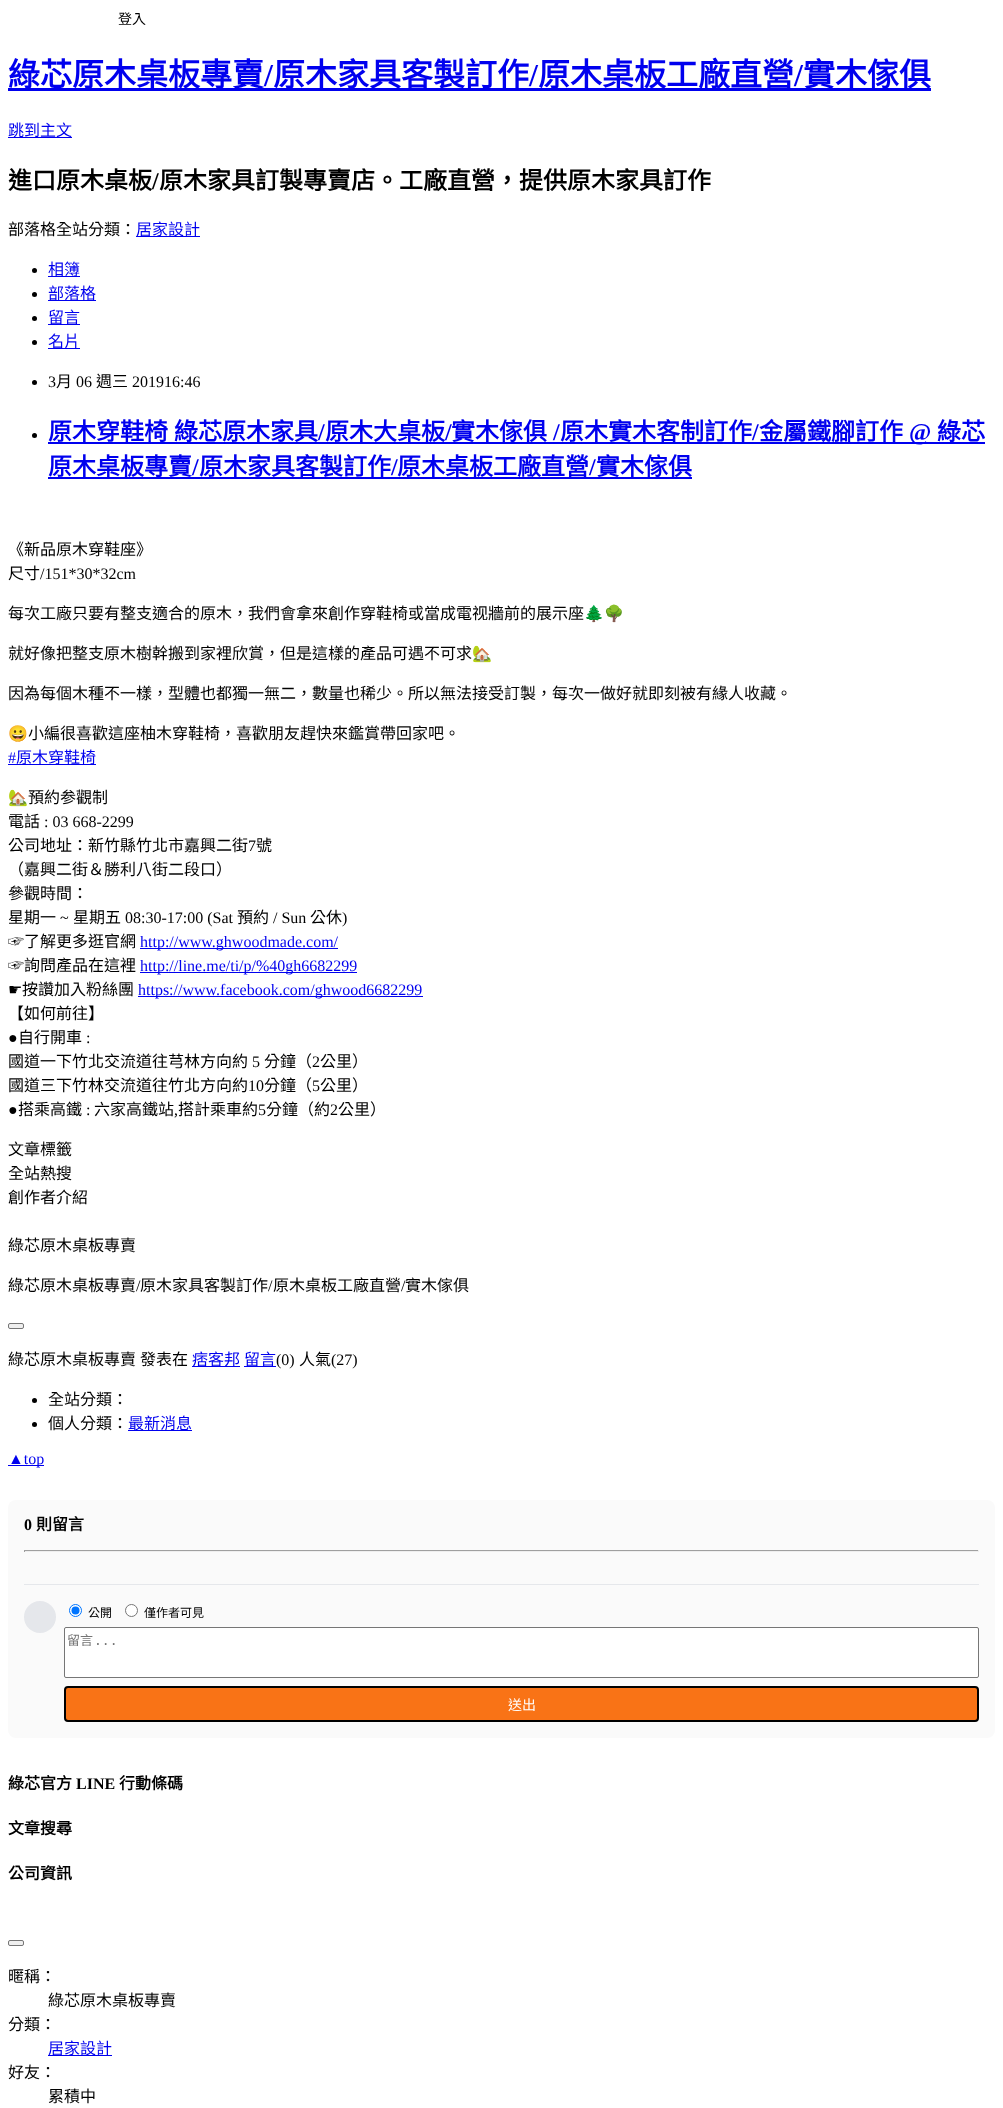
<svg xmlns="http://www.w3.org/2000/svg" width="1003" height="2108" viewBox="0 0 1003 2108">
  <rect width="100%" height="100%" fill="#fff"/>
  <path d="M8 88h923v3H8z" fill="#00e"/>
  <path d="M8 137h64v1H8z" fill="#00e"/>
  <path d="M136 236h64v1H136z" fill="#00e"/>
  <circle cx="34.5" cy="270.5" r="2.5" fill="#000"/>
  <path d="M48 276h32v1H48z" fill="#00e"/>
  <circle cx="34.5" cy="294.5" r="2.5" fill="#000"/>
  <path d="M48 300h48v1H48z" fill="#00e"/>
  <circle cx="34.5" cy="318.5" r="2.5" fill="#000"/>
  <path d="M48 324h32v1H48z" fill="#00e"/>
  <circle cx="34.5" cy="342.5" r="2.5" fill="#000"/>
  <path d="M48 348h32v1H48z" fill="#00e"/>
  <circle cx="34.5" cy="382.5" r="2.5" fill="#000"/>
  <circle cx="34.5" cy="435.5" r="2.5" fill="#000"/>
  <path d="M48 442h937v2H48z" fill="#00e"/>
  <path d="M48 477h644v2H48z" fill="#00e"/>
  <path d="M8 764h88v1H8z" fill="#00e"/>
  <path d="M140 948h198v1H140z" fill="#00e"/>
  <path d="M140 972h217v1H140z" fill="#00e"/>
  <path d="M138 996h285v1H138z" fill="#00e"/>
  <rect x="8.5" y="1323.5" width="15" height="5" rx="1.5" fill="#efefef" stroke="#767676"/>
  <path d="M192 1366h48v1H192z" fill="#00e"/>
  <path d="M244 1366h32v1H244z" fill="#00e"/>
  <circle cx="34.5" cy="1400.5" r="2.5" fill="#000"/>
  <circle cx="34.5" cy="1424.5" r="2.5" fill="#000"/>
  <path d="M128 1430h64v1H128z" fill="#00e"/>
  <path d="M8 1465h36v1H8z" fill="#00e"/>
  <rect x="8" y="1500" width="987" height="238" rx="8" fill="#fafafa"/>
  <path d="M24 1550h955v1H24z" fill="#9f9f9f"/>
  <path d="M978 1550h1v2H978z" fill="#eee"/>
  <path d="M24 1551h955v1H24z" fill="#eee"/>
  <path d="M24 1550h1v2H24z" fill="#9f9f9f"/>
  <path d="M24 1584h955v1H24z" fill="#e5e7eb"/>
  <circle cx="40" cy="1617" r="16" fill="#e5e7eb"/>
  <circle cx="75.5" cy="1610.5" r="6" fill="#fff" stroke="#0075ff"/>
  <circle cx="75.5" cy="1610.5" r="4" fill="#0075ff"/>
  <circle cx="131.5" cy="1610.5" r="6" fill="#fff" stroke="#767676"/>
  <rect x="64.5" y="1627.5" width="914" height="50" rx="1.5" fill="#fff" stroke="#767676"/>
  <rect x="65" y="1687" width="913" height="34" rx="3" fill="#f97316" stroke="#000" stroke-width="2"/>
  <rect x="8.5" y="1940.5" width="15" height="5" rx="1.5" fill="#efefef" stroke="#767676"/>
  <path d="M48 2055h64v1H48z" fill="#00e"/>
  <text x="118" y="24" font-family="Noto Sans CJK TC" font-size="14" fill="#000">登入</text>
  <text x="8" y="86" font-family="Noto Sans CJK TC" font-size="32" font-weight="bold" fill="#00e">綠芯原木桌板專賣</text>
  <text x="264" y="86" font-family="Liberation Serif" font-size="32" font-weight="bold" fill="#00e">/</text>
  <text x="273" y="86" font-family="Noto Sans CJK TC" font-size="32" font-weight="bold" fill="#00e">原木家具客製訂作</text>
  <text x="529" y="86" font-family="Liberation Serif" font-size="32" font-weight="bold" fill="#00e">/</text>
  <text x="538" y="86" font-family="Noto Sans CJK TC" font-size="32" font-weight="bold" fill="#00e">原木桌板工廠直營</text>
  <text x="794" y="86" font-family="Liberation Serif" font-size="32" font-weight="bold" fill="#00e">/</text>
  <text x="803" y="86" font-family="Noto Sans CJK TC" font-size="32" font-weight="bold" fill="#00e">實木傢俱</text>
  <text x="8" y="136" font-family="Noto Sans CJK TC" font-size="16" fill="#00e">跳到主文</text>
  <text x="8" y="189" font-family="Noto Sans CJK TC" font-size="24" font-weight="bold" fill="#000">進口原木桌板</text>
  <text x="152" y="189" font-family="Liberation Serif" font-size="24" font-weight="bold" fill="#000">/</text>
  <text x="159" y="189" font-family="Noto Sans CJK TC" font-size="24" font-weight="bold" fill="#000">原木家具訂製專賣店。工廠直營，提供原木家具訂作</text>
  <text x="8" y="235" font-family="Noto Sans CJK TC" font-size="16" fill="#000">部落格全站分類：</text>
  <g font-family="Noto Sans CJK TC" font-size="16" fill="#00e">
    <text x="136" y="235">居家設計</text>
    <text x="48" y="275">相簿</text>
    <text x="48" y="299">部落格</text>
    <text x="48" y="323">留言</text>
    <text x="48" y="347">名片</text>
  </g>
  <text x="48" y="387" font-family="Liberation Serif" font-size="16" fill="#000">3</text>
  <text x="56" y="387" font-family="Noto Sans CJK TC" font-size="16" fill="#000">月</text>
  <text x="76" y="387" font-family="Liberation Serif" font-size="16" fill="#000">06</text>
  <text x="96" y="387" font-family="Noto Sans CJK TC" font-size="16" fill="#000">週三</text>
  <text x="132" y="387" font-family="Liberation Serif" font-size="16" fill="#000">201916:46</text>
  <g font-family="Noto Sans CJK TC" font-size="24" font-weight="bold" fill="#00e">
    <text x="48" y="440">原木穿鞋椅</text>
    <text x="174" y="440">綠芯原木家具</text>
  </g>
  <text x="318" y="440" font-family="Liberation Serif" font-size="24" font-weight="bold" fill="#00e">/</text>
  <text x="325" y="440" font-family="Noto Sans CJK TC" font-size="24" font-weight="bold" fill="#00e">原木大桌板</text>
  <text x="445" y="440" font-family="Liberation Serif" font-size="24" font-weight="bold" fill="#00e">/</text>
  <text x="451" y="440" font-family="Noto Sans CJK TC" font-size="24" font-weight="bold" fill="#00e">實木傢俱</text>
  <text x="553" y="440" font-family="Liberation Serif" font-size="24" font-weight="bold" fill="#00e">/</text>
  <text x="560" y="440" font-family="Noto Sans CJK TC" font-size="24" font-weight="bold" fill="#00e">原木實木客制訂作</text>
  <text x="752" y="440" font-family="Liberation Serif" font-size="24" font-weight="bold" fill="#00e">/</text>
  <text x="759" y="440" font-family="Noto Sans CJK TC" font-size="24" font-weight="bold" fill="#00e">金屬鐵腳訂作</text>
  <text x="909" y="440" font-family="Liberation Serif" font-size="24" font-weight="bold" fill="#00e">@</text>
  <g font-family="Noto Sans CJK TC" font-size="24" font-weight="bold" fill="#00e">
    <text x="937" y="440">綠芯</text>
    <text x="48" y="475">原木桌板專賣</text>
  </g>
  <text x="192" y="475" font-family="Liberation Serif" font-size="24" font-weight="bold" fill="#00e">/</text>
  <text x="199" y="475" font-family="Noto Sans CJK TC" font-size="24" font-weight="bold" fill="#00e">原木家具客製訂作</text>
  <text x="391" y="475" font-family="Liberation Serif" font-size="24" font-weight="bold" fill="#00e">/</text>
  <text x="397" y="475" font-family="Noto Sans CJK TC" font-size="24" font-weight="bold" fill="#00e">原木桌板工廠直營</text>
  <text x="589" y="475" font-family="Liberation Serif" font-size="24" font-weight="bold" fill="#00e">/</text>
  <text x="596" y="475" font-family="Noto Sans CJK TC" font-size="24" font-weight="bold" fill="#00e">實木傢俱</text>
  <g font-family="Noto Sans CJK TC" font-size="16" fill="#000">
    <text x="8" y="555">《新品原木穿鞋座》</text>
    <text x="8" y="579">尺寸</text>
  </g>
  <text x="40" y="579" font-family="Liberation Serif" font-size="16" fill="#000">/151*30*32cm</text>
  <text x="8" y="619" font-family="Noto Sans CJK TC" font-size="16" fill="#000">每次工廠只要有整支適合的原木，我們會拿來創作穿鞋椅或當成電视牆前的展示座</text>
  <text x="584" y="619" font-family="Noto Color Emoji" font-size="16" fill="#000">🌲🌳</text>
  <text x="8" y="659" font-family="Noto Sans CJK TC" font-size="16" fill="#000">就好像把整支原木樹幹搬到家裡欣賞，但是這樣的產品可遇不可求</text>
  <text x="472" y="659" font-family="Noto Color Emoji" font-size="16" fill="#000">🏡</text>
  <text x="8" y="699" font-family="Noto Sans CJK TC" font-size="16" fill="#000">因為每個木種不一樣，型體也都獨一無二，數量也稀少。所以無法接受訂製，每次一做好就即刻被有緣人收藏。</text>
  <text x="8" y="739" font-family="Noto Color Emoji" font-size="16" fill="#000">😀</text>
  <text x="28" y="739" font-family="Noto Sans CJK TC" font-size="16" fill="#000">小編很喜歡這座柚木穿鞋椅，喜歡朋友趕快來鑑賞帶回家吧。</text>
  <text x="8" y="763" font-family="Liberation Serif" font-size="16" fill="#00e">#</text>
  <text x="16" y="763" font-family="Noto Sans CJK TC" font-size="16" fill="#00e">原木穿鞋椅</text>
  <text x="8" y="803" font-family="Noto Color Emoji" font-size="16" fill="#000">🏡</text>
  <g font-family="Noto Sans CJK TC" font-size="16" fill="#000">
    <text x="28" y="803">預約参觀制</text>
    <text x="8" y="827">電話</text>
  </g>
  <text x="44" y="827" font-family="Liberation Serif" font-size="16" fill="#000">: 03 668-2299</text>
  <text x="8" y="851" font-family="Noto Sans CJK TC" font-size="16" fill="#000">公司地址：新竹縣竹北市嘉興二街</text>
  <text x="248" y="851" font-family="Liberation Serif" font-size="16" fill="#000">7</text>
  <g font-family="Noto Sans CJK TC" font-size="16" fill="#000">
    <text x="256" y="851">號</text>
    <text x="8" y="875">（嘉興二街＆勝利八街二段口）</text>
    <text x="8" y="899">參觀時間：</text>
    <text x="8" y="923">星期一</text>
  </g>
  <text x="60" y="923" font-family="Liberation Serif" font-size="16" fill="#000">~</text>
  <text x="73" y="923" font-family="Noto Sans CJK TC" font-size="16" fill="#000">星期五</text>
  <text x="125" y="923" font-family="Liberation Serif" font-size="16" fill="#000">08:30-17:00 (Sat</text>
  <text x="237" y="923" font-family="Noto Sans CJK TC" font-size="16" fill="#000">預約</text>
  <text x="273" y="923" font-family="Liberation Serif" font-size="16" fill="#000">/ Sun</text>
  <text x="310" y="923" font-family="Noto Sans CJK TC" font-size="16" fill="#000">公休</text>
  <text x="342" y="923" font-family="Liberation Serif" font-size="16" fill="#000">)</text>
  <text x="8" y="947" font-family="Noto Sans CJK TC" font-size="16" fill="#000">☞了解更多逛官網</text>
  <text x="140" y="947" font-family="Liberation Serif" font-size="16" fill="#00e">http://www.ghwoodmade.com/</text>
  <text x="8" y="971" font-family="Noto Sans CJK TC" font-size="16" fill="#000">☞詢問產品在這裡</text>
  <text x="140" y="971" font-family="Liberation Serif" font-size="16" fill="#00e">http://line.me/ti/p/%40gh6682299</text>
  <text x="8" y="995" font-family="DejaVu Sans" font-size="16" fill="#000">☛</text>
  <text x="22" y="995" font-family="Noto Sans CJK TC" font-size="16" fill="#000">按讚加入粉絲團</text>
  <text x="138" y="995" font-family="Liberation Serif" font-size="16" fill="#00e">https://www.facebook.com/ghwood6682299</text>
  <text x="8" y="1019" font-family="Noto Sans CJK TC" font-size="16" fill="#000">【如何前往】</text>
  <text x="8" y="1043" font-family="Liberation Serif" font-size="16" fill="#000">●</text>
  <text x="18" y="1043" font-family="Noto Sans CJK TC" font-size="16" fill="#000">自行開車</text>
  <text x="86" y="1043" font-family="Liberation Serif" font-size="16" fill="#000">:</text>
  <text x="8" y="1067" font-family="Noto Sans CJK TC" font-size="16" fill="#000">國道一下竹北交流道往芎林方向約</text>
  <text x="252" y="1067" font-family="Liberation Serif" font-size="16" fill="#000">5</text>
  <text x="264" y="1067" font-family="Noto Sans CJK TC" font-size="16" fill="#000">分鐘（</text>
  <text x="312" y="1067" font-family="Liberation Serif" font-size="16" fill="#000">2</text>
  <g font-family="Noto Sans CJK TC" font-size="16" fill="#000">
    <text x="320" y="1067">公里）</text>
    <text x="8" y="1091">國道三下竹林交流道往竹北方向約</text>
  </g>
  <text x="248" y="1091" font-family="Liberation Serif" font-size="16" fill="#000">10</text>
  <text x="264" y="1091" font-family="Noto Sans CJK TC" font-size="16" fill="#000">分鐘（</text>
  <text x="312" y="1091" font-family="Liberation Serif" font-size="16" fill="#000">5</text>
  <text x="320" y="1091" font-family="Noto Sans CJK TC" font-size="16" fill="#000">公里）</text>
  <text x="8" y="1115" font-family="Liberation Serif" font-size="16" fill="#000">●</text>
  <text x="18" y="1115" font-family="Noto Sans CJK TC" font-size="16" fill="#000">搭乘高鐵</text>
  <text x="86" y="1115" font-family="Liberation Serif" font-size="16" fill="#000">:</text>
  <text x="94" y="1115" font-family="Noto Sans CJK TC" font-size="16" fill="#000">六家高鐵站</text>
  <text x="174" y="1115" font-family="Liberation Serif" font-size="16" fill="#000">,</text>
  <text x="178" y="1115" font-family="Noto Sans CJK TC" font-size="16" fill="#000">搭計乘車約</text>
  <text x="258" y="1115" font-family="Liberation Serif" font-size="16" fill="#000">5</text>
  <text x="266" y="1115" font-family="Noto Sans CJK TC" font-size="16" fill="#000">分鐘（約</text>
  <text x="330" y="1115" font-family="Liberation Serif" font-size="16" fill="#000">2</text>
  <g font-family="Noto Sans CJK TC" font-size="16" fill="#000">
    <text x="338" y="1115">公里）</text>
    <text x="8" y="1155">文章標籤</text>
    <text x="8" y="1179">全站熱搜</text>
    <text x="8" y="1203">創作者介紹</text>
    <text x="8" y="1251">綠芯原木桌板專賣</text>
    <text x="8" y="1291">綠芯原木桌板專賣</text>
  </g>
  <text x="136" y="1291" font-family="Liberation Serif" font-size="16" fill="#000">/</text>
  <text x="140" y="1291" font-family="Noto Sans CJK TC" font-size="16" fill="#000">原木家具客製訂作</text>
  <text x="268" y="1291" font-family="Liberation Serif" font-size="16" fill="#000">/</text>
  <text x="273" y="1291" font-family="Noto Sans CJK TC" font-size="16" fill="#000">原木桌板工廠直營</text>
  <text x="401" y="1291" font-family="Liberation Serif" font-size="16" fill="#000">/</text>
  <g font-family="Noto Sans CJK TC" font-size="16" fill="#000">
    <text x="405" y="1291">實木傢俱</text>
    <text x="8" y="1365">綠芯原木桌板專賣</text>
    <text x="140" y="1365">發表在</text>
  </g>
  <g font-family="Noto Sans CJK TC" font-size="16" fill="#00e">
    <text x="192" y="1365">痞客邦</text>
    <text x="244" y="1365">留言</text>
  </g>
  <text x="276" y="1365" font-family="Liberation Serif" font-size="16" fill="#000">(0)</text>
  <text x="299" y="1365" font-family="Noto Sans CJK TC" font-size="16" fill="#000">人氣</text>
  <text x="331" y="1365" font-family="Liberation Serif" font-size="16" fill="#000">(27)</text>
  <g font-family="Noto Sans CJK TC" font-size="16" fill="#000">
    <text x="48" y="1405">全站分類：</text>
    <text x="48" y="1429">個人分類：</text>
  </g>
  <text x="128" y="1429" font-family="Noto Sans CJK TC" font-size="16" fill="#00e">最新消息</text>
  <text x="8" y="1464" font-family="Liberation Serif" font-size="16" fill="#00e">▲top</text>
  <text x="24" y="1530" font-family="Liberation Serif" font-size="16" font-weight="bold" fill="#000">0</text>
  <text x="36" y="1530" font-family="Noto Sans CJK TC" font-size="16" font-weight="bold" fill="#000">則留言</text>
  <g font-family="Noto Sans CJK TC" font-size="12" fill="#000">
    <text x="88" y="1617">公開</text>
    <text x="144" y="1617">僅作者可見</text>
  </g>
  <text x="67" y="1645" font-family="Noto Sans CJK TC" font-size="13" fill="#757575">留言</text>
  <text x="94" y="1645" font-family="DejaVu Sans Mono" font-size="13" fill="#757575">...</text>
  <text x="508" y="1710" font-family="Noto Sans CJK TC" font-size="14" fill="#fff">送出</text>
  <text x="8" y="1789" font-family="Noto Sans CJK TC" font-size="16" font-weight="bold" fill="#000">綠芯官方</text>
  <text x="76" y="1789" font-family="Liberation Serif" font-size="16" font-weight="bold" fill="#000">LINE</text>
  <g font-family="Noto Sans CJK TC" font-size="16" font-weight="bold" fill="#000">
    <text x="119" y="1789">行動條碼</text>
    <text x="8" y="1834">文章搜尋</text>
    <text x="8" y="1879">公司資訊</text>
  </g>
  <g font-family="Noto Sans CJK TC" font-size="16" fill="#000">
    <text x="8" y="1982">暱稱：</text>
    <text x="48" y="2006">綠芯原木桌板專賣</text>
    <text x="8" y="2030">分類：</text>
  </g>
  <text x="48" y="2054" font-family="Noto Sans CJK TC" font-size="16" fill="#00e">居家設計</text>
  <g font-family="Noto Sans CJK TC" font-size="16" fill="#000">
    <text x="8" y="2078">好友：</text>
    <text x="48" y="2102">累積中</text>
  </g>
</svg>
